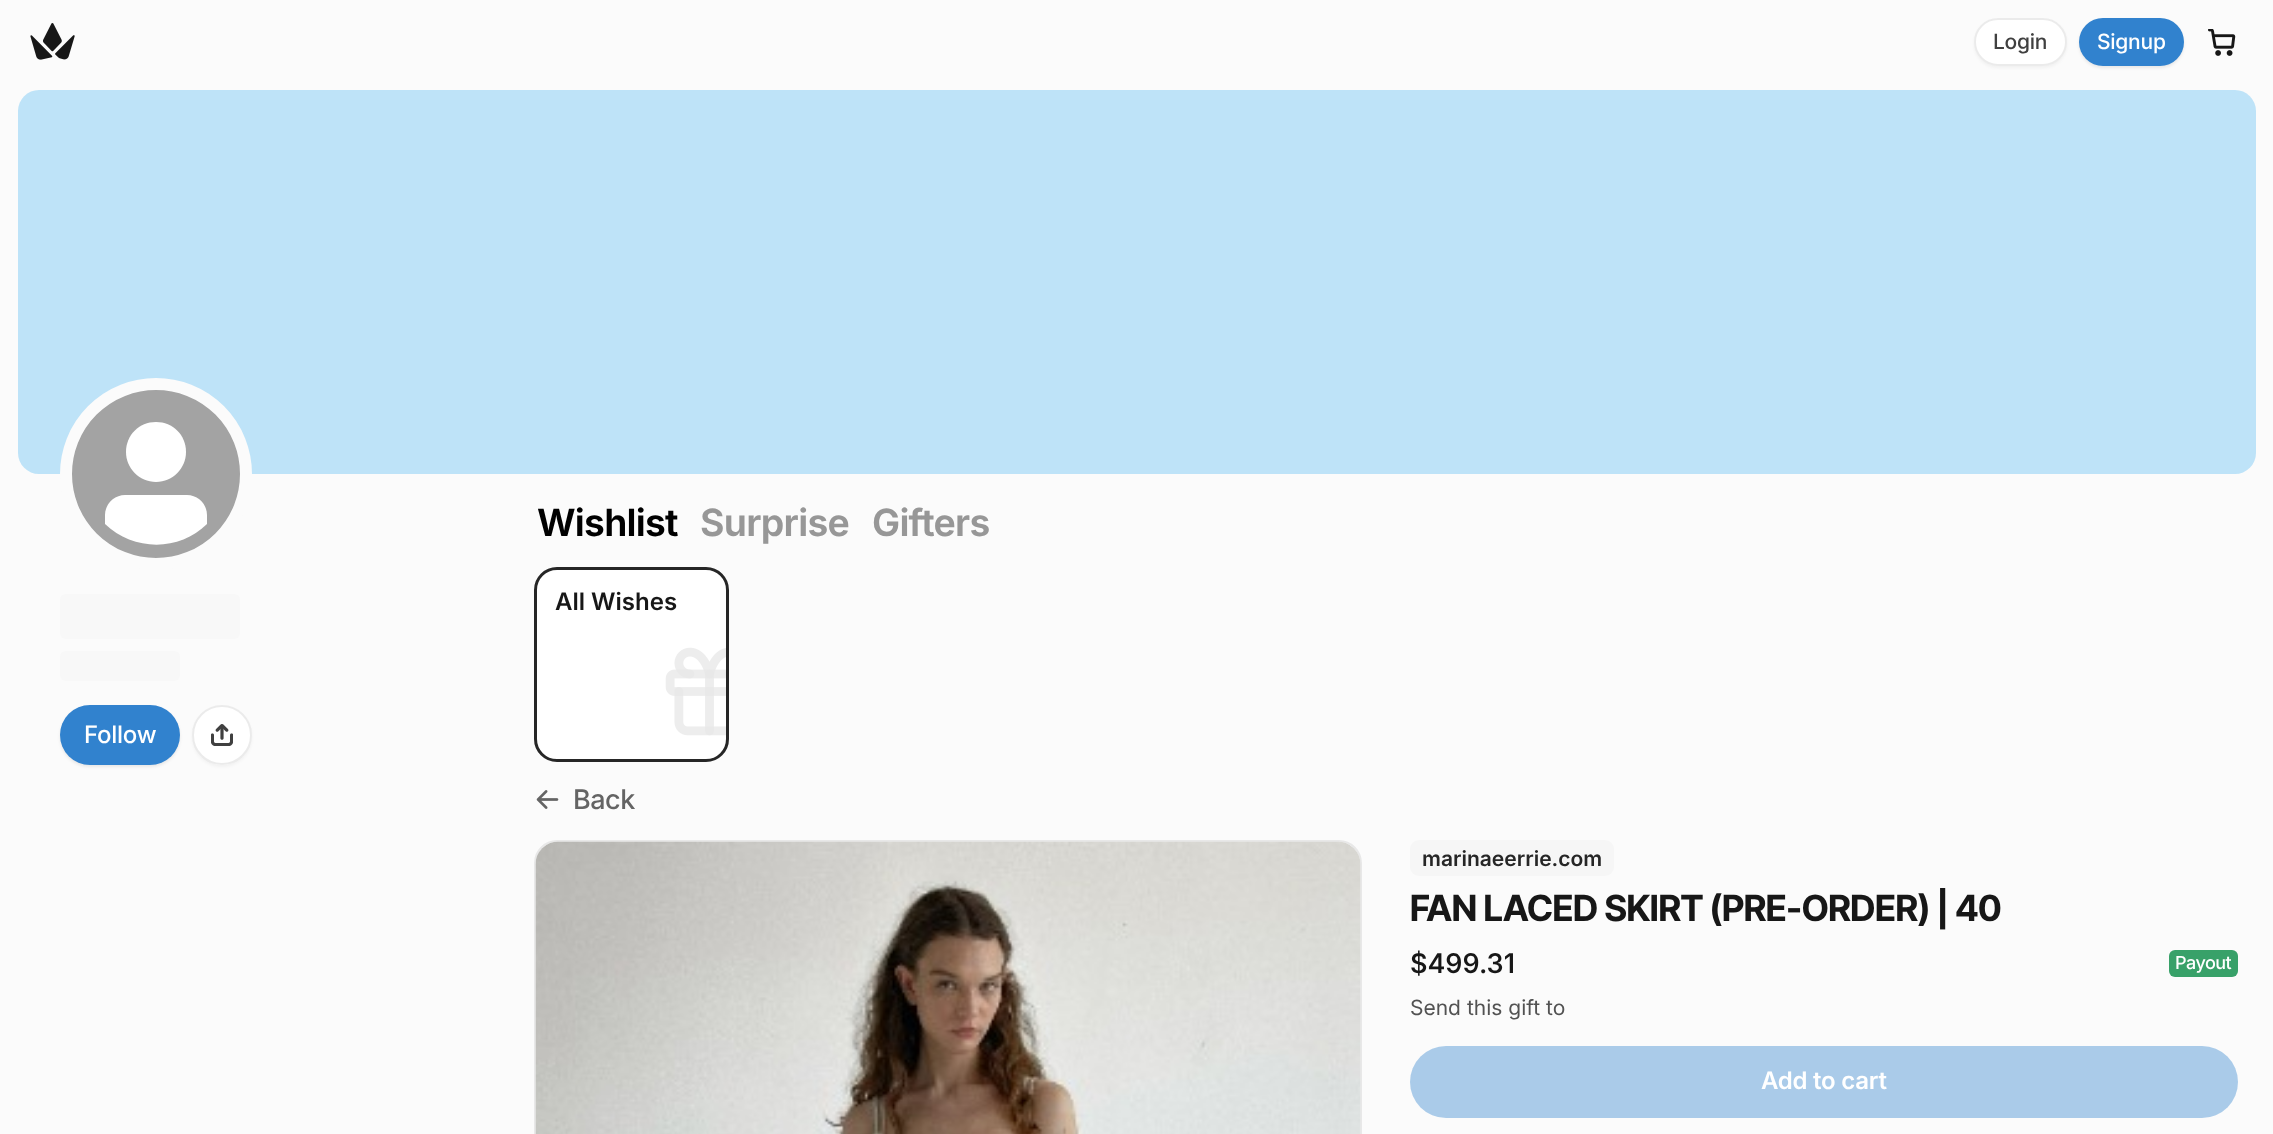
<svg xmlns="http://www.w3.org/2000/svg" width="2273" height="1134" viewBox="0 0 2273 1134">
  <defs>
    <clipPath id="clip1"><path d="M1410 888h828v44H1410z"/></clipPath>
  </defs>
  <rect width="100%" height="100%" fill="#fbfbfb"/>
  <image x="30" y="23" width="45" height="37" href="img/1.png"/>
  <rect x="1974" y="20" width="93" height="48" rx="24" fill="#0000000a" filter="blur(1.5px)"/>
  <rect x="1974" y="18" width="93" height="48" rx="24" fill="#fff"/>
  <rect x="1975" y="19" width="91" height="46" rx="23" fill="none" stroke="#00000014" stroke-width="2"/>
  <rect x="2079" y="20" width="105" height="48" rx="24" fill="#00000014" filter="blur(1.5px)"/>
  <rect x="2079" y="18" width="105" height="48" rx="24" fill="#3182ce"/>
  <image x="2208" y="29" width="28" height="27" href="img/2.png"/>
  <rect x="18" y="90" width="2238" height="384" rx="21" fill="#bee3f8"/>
  <circle cx="156" cy="474" r="90" fill="#a3a3a3" stroke="#fbfbfb" stroke-width="12"/>
  <path d="M207 524C179 552 133 551 105 524V515C105 504 114 495 125 495H187C198 495 207 504 207 515Z" fill="#fff"/>
  <path d="M156 422C139 422 126 435 126 452C126 468 139 482 156 482C173 482 186 468 186 452C186 435 173 422 156 422" fill="#fff"/>
  <rect x="60" y="594" width="180" height="45" rx="6" fill="#f8f8f8"/>
  <rect x="60" y="651" width="120" height="30" rx="6" fill="#f8f8f8"/>
  <rect x="60" y="707" width="120" height="60" rx="30" fill="#00000014" filter="blur(1.5px)"/>
  <rect x="60" y="705" width="120" height="60" rx="30" fill="#3182ce"/>
  <rect x="192" y="707" width="60" height="60" rx="30" fill="#0000000a" filter="blur(1.5px)"/>
  <circle cx="222" cy="735" r="30" fill="#fff"/>
  <circle cx="222" cy="735" r="29" fill="none" stroke="#00000014" stroke-width="2"/>
  <image x="211" y="724" width="22" height="22" href="img/3.png"/>
  <rect x="535.5" y="568.5" width="192" height="192" rx="21.5" fill="#fff" stroke="#262626" stroke-width="3"/>
  <image x="665" y="647" width="61" height="89" href="img/4.png"/>
  <image x="536" y="790" width="23" height="19" href="img/5.png"/>
  <rect x="535" y="841" width="826" height="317" rx="22" fill="#fff" stroke="#e8e8e8" stroke-width="2"/>
  <image x="535" y="841" width="826" height="293" href="img/6.png"/>
  <rect x="1410" y="840" width="204" height="36" rx="9" fill="#f6f6f6"/>
  <rect x="2169" y="950" width="69" height="27" rx="6" fill="#38a169"/>
  <rect x="1410" y="1046" width="828" height="72" rx="36" fill="#aacbe9"/>
  <text x="1993" y="49" font-family="'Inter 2'" font-size="21" font-weight="500" letter-spacing="-0.25" fill="#404040">Login</text>
  <text x="2097" y="49" font-family="'Inter 2'" font-size="21" font-weight="500" letter-spacing="-0.25" fill="#fff">Signup</text>
  <text x="84" y="743" font-family="'Inter 2'" font-size="24" font-weight="500" letter-spacing="-0.25" fill="#fff">Follow</text>
  <text x="537" y="536" font-family="Inter" font-size="37.5" font-weight="600" letter-spacing="-0.75" fill="#000">Wishlist</text>
  <g font-family="Inter" font-size="37.5" font-weight="600" letter-spacing="-0.75" fill="#979797">
    <text x="700" y="536">Surprise</text>
    <text x="872" y="536">Gifters</text>
  </g>
  <text x="555" y="610" font-family="'Inter 2'" font-size="24" font-weight="600" fill="#171717">All Wishes</text>
  <text x="573" y="809" font-family="'Inter 2'" font-size="27" font-weight="500" letter-spacing="-0.5" fill="#646464">Back</text>
  <text x="1422" y="866" font-family="'Inter 2'" font-size="21" font-weight="600" fill="#262626">marinaeerrie.com</text>
  <g clip-path="url(#clip1)">
    <text x="1410" y="921" font-family="Inter Tight" font-size="36" font-weight="bold" letter-spacing="-0.35" fill="#171717">FAN LACED SKIRT (PRE-ORDER) | 40</text>
  </g>
  <text x="1410" y="973" font-family="Inter" font-size="27" font-weight="500" fill="#171717">$499.31</text>
  <text x="2175" y="969" font-family="'Inter 2'" font-size="18" font-weight="500" letter-spacing="-0.5" fill="#fff">Payout</text>
  <text x="1410" y="1015" font-family="Inter" font-size="21" fill="#525252">Send this gift to</text>
  <text x="1761" y="1089" font-family="'Inter 2'" font-size="24" font-weight="600" letter-spacing="-0.25" fill="#fff">Add to cart</text>
</svg>
